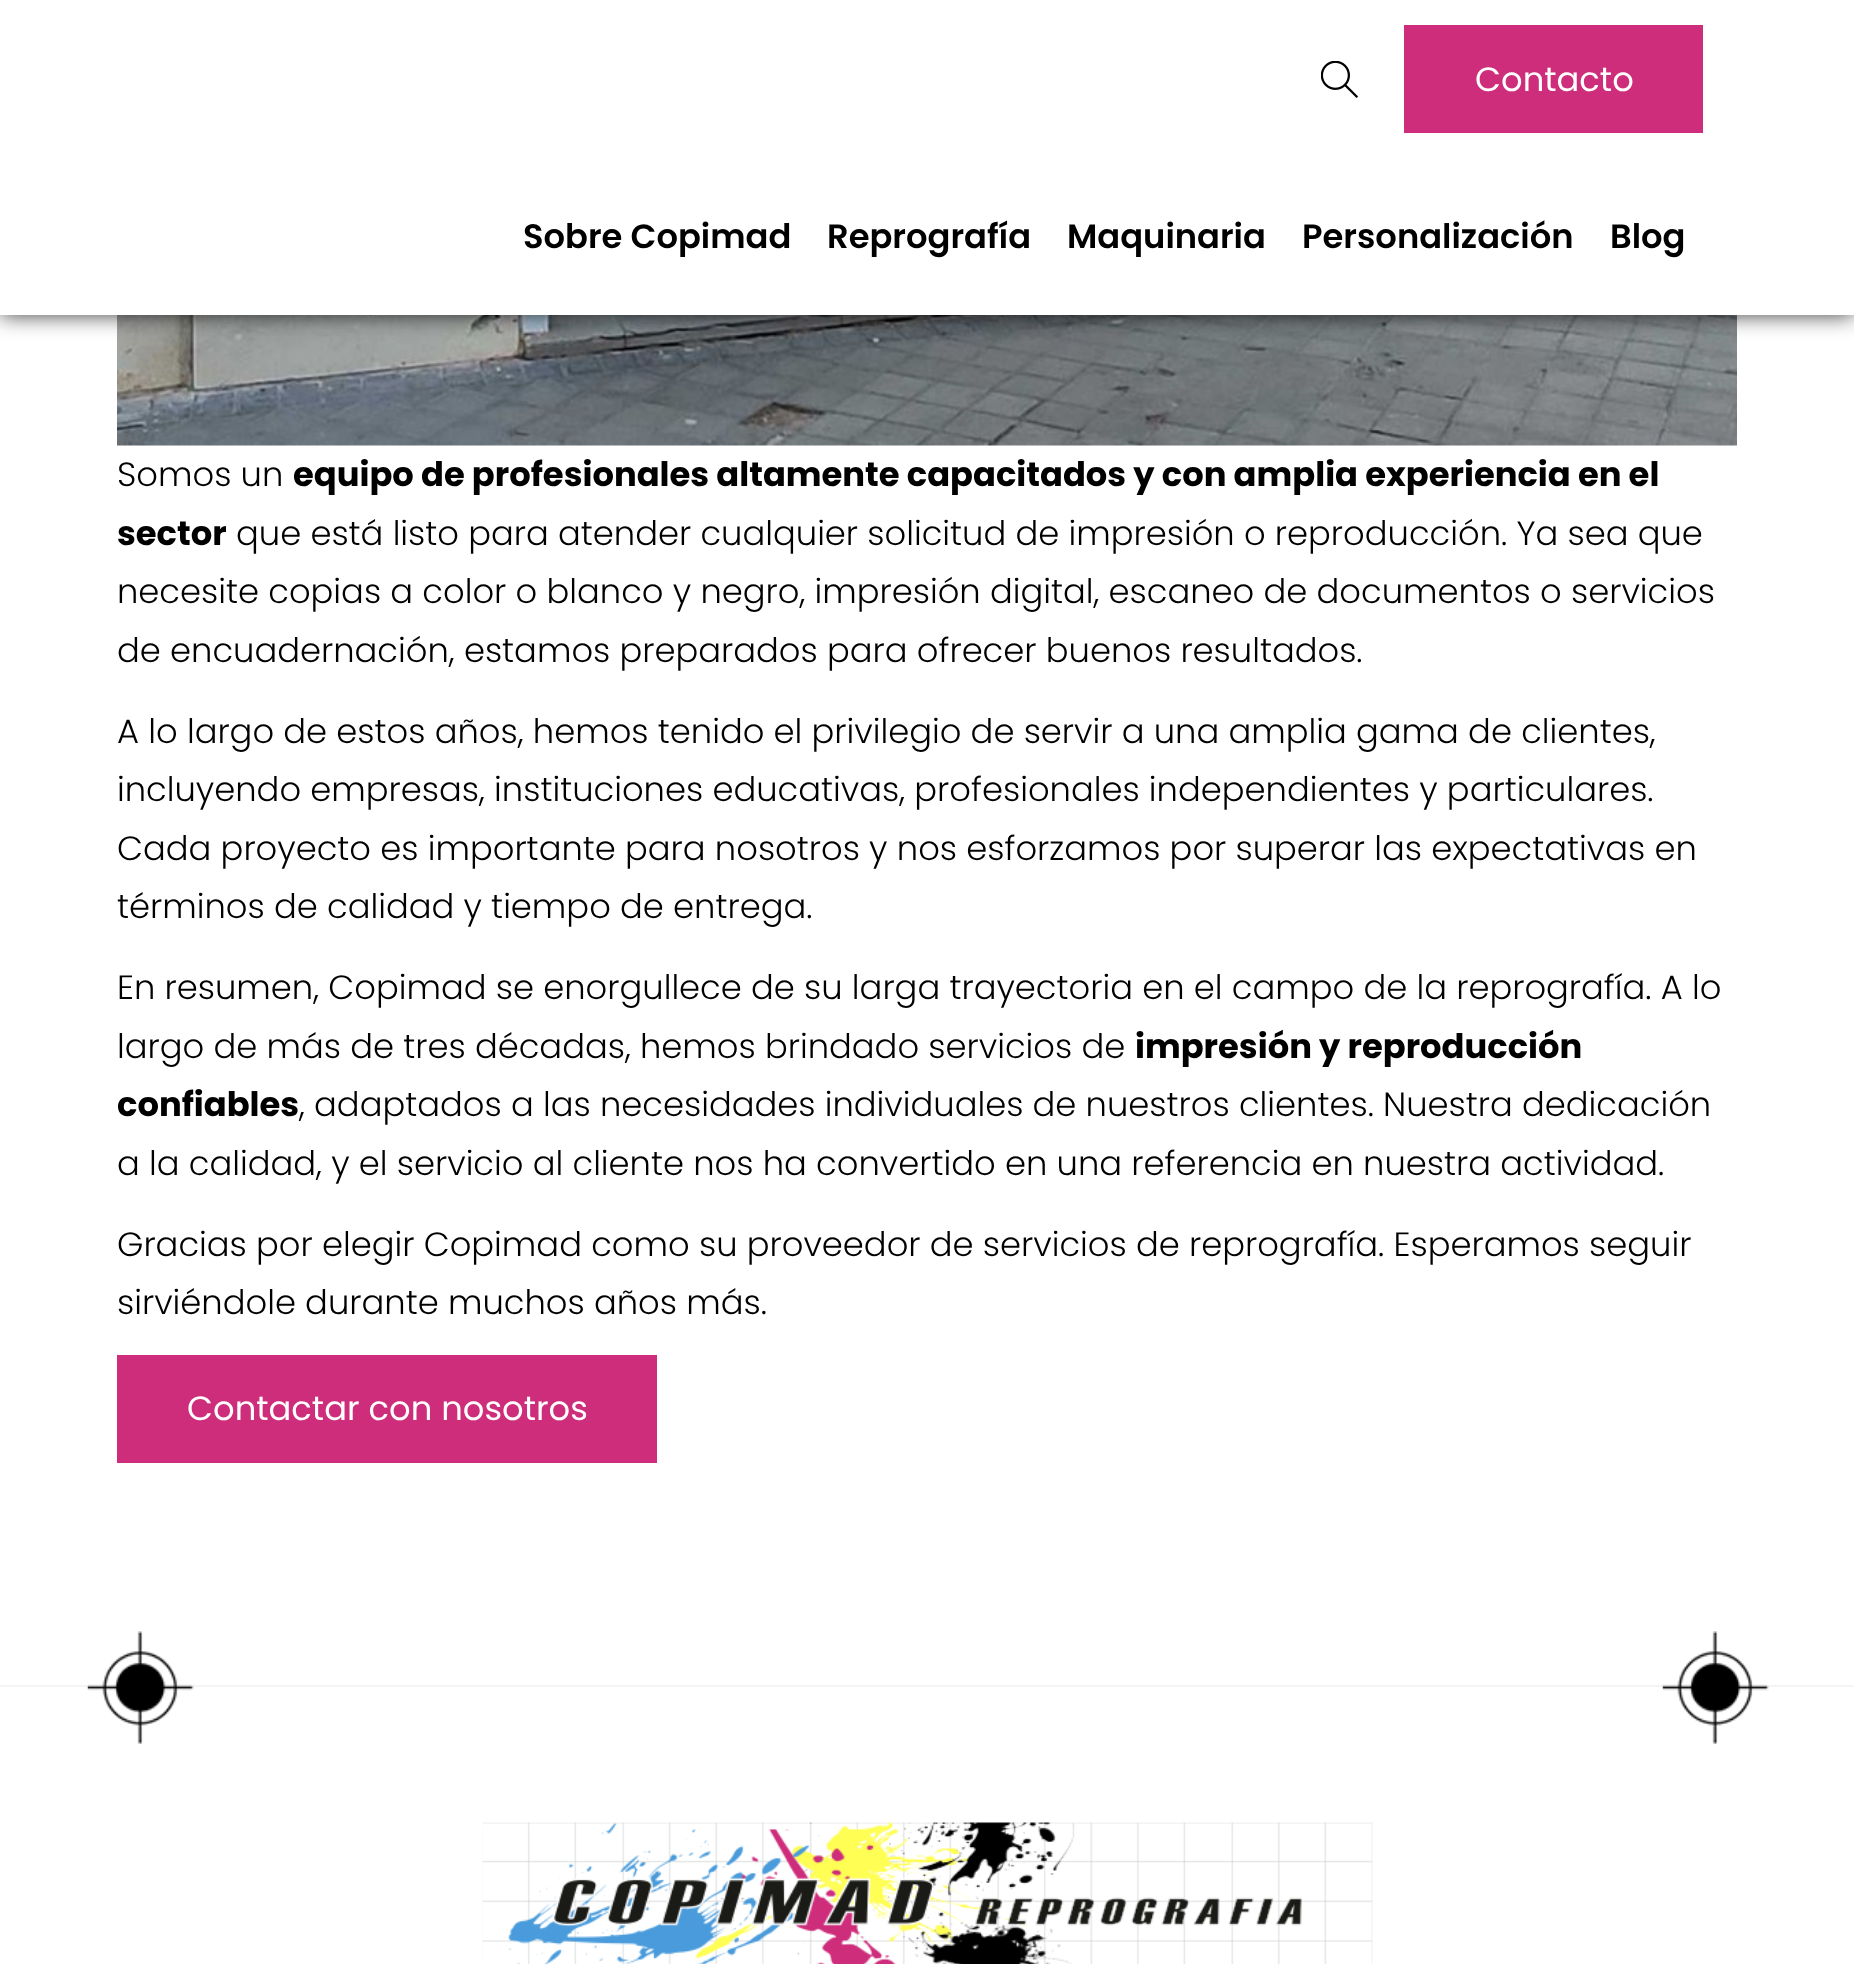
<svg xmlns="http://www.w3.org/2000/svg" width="1854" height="1964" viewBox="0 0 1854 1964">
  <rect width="100%" height="100%" fill="#fff"/>
  <image x="117" y="315" width="1620" height="131" href="img/2.png"/>
  <path d="M0 0h1854v315H0z" fill="#000000c4" filter="blur(11px)"/>
  <path d="M0 0h1854v315H0z" fill="#fff"/>
  <image x="1321" y="61" width="37" height="37" href="img/1.png"/>
  <path d="M1404 25h299v108H1404z" fill="#ce2d7b"/>
  <path d="M117 1355h540v108H117z" fill="#ce2d7b"/>
  <path d="M0 1685h1854v2H0z" fill="#f3f5f2"/>
  <image x="87" y="1631" width="107" height="113" href="img/3.png"/>
  <image x="1662" y="1631" width="107" height="113" href="img/3.png"/>
  <image x="482" y="1822" width="891" height="142" href="img/4.png"/>
  <text x="1475" y="91" font-family="Poppins" font-size="33.75" fill="#fff">Contacto</text>
  <g font-family="Poppins" font-size="33.75" font-weight="600" fill="#000">
    <text x="523" y="248">Sobre Copimad</text>
    <text x="827" y="248">Reprografía</text>
    <text x="1067" y="248">Maquinaria</text>
    <text x="1302" y="248">Personalización</text>
    <text x="1610" y="248">Blog</text>
  </g>
  <text x="117" y="486" font-family="Poppins" font-size="33.75" font-weight="300" fill="#000">Somos un</text>
  <g font-family="Poppins" font-size="33.75" font-weight="bold" fill="#000">
    <text x="293" y="486">equipo de profesionales altamente capacitados y con amplia experiencia en el</text>
    <text x="117" y="545">sector</text>
  </g>
  <g font-family="Poppins" font-size="33.75" font-weight="300" fill="#000">
    <text x="236" y="545">que está listo para atender cualquier solicitud de impresión o reproducción. Ya sea que</text>
    <text x="117" y="603">necesite copias a color o blanco y negro, impresión digital, escaneo de documentos o servicios</text>
    <text x="117" y="662">de encuadernación, estamos preparados para ofrecer buenos resultados.</text>
    <text x="117" y="743">A lo largo de estos años, hemos tenido el privilegio de servir a una amplia gama de clientes,</text>
    <text x="117" y="801">incluyendo empresas, instituciones educativas, profesionales independientes y particulares.</text>
    <text x="117" y="860">Cada proyecto es importante para nosotros y nos esforzamos por superar las expectativas en</text>
    <text x="117" y="918">términos de calidad y tiempo de entrega.</text>
    <text x="117" y="999">En resumen, Copimad se enorgullece de su larga trayectoria en el campo de la reprografía. A lo</text>
    <text x="117" y="1058">largo de más de tres décadas, hemos brindado servicios de</text>
  </g>
  <g font-family="Poppins" font-size="33.75" font-weight="bold" fill="#000">
    <text x="1135" y="1058">impresión y reproducción</text>
    <text x="117" y="1116">confiables</text>
  </g>
  <g font-family="Poppins" font-size="33.75" font-weight="300" fill="#000">
    <text x="299" y="1116">, adaptados a las necesidades individuales de nuestros clientes. Nuestra dedicación</text>
    <text x="117" y="1175">a la calidad, y el servicio al cliente nos ha convertido en una referencia en nuestra actividad.</text>
    <text x="117" y="1256">Gracias por elegir Copimad como su proveedor de servicios de reprografía. Esperamos seguir</text>
    <text x="117" y="1314">sirviéndole durante muchos años más.</text>
  </g>
  <text x="187" y="1420" font-family="Poppins" font-size="33.75" fill="#fff">Contactar con nosotros</text>
</svg>
